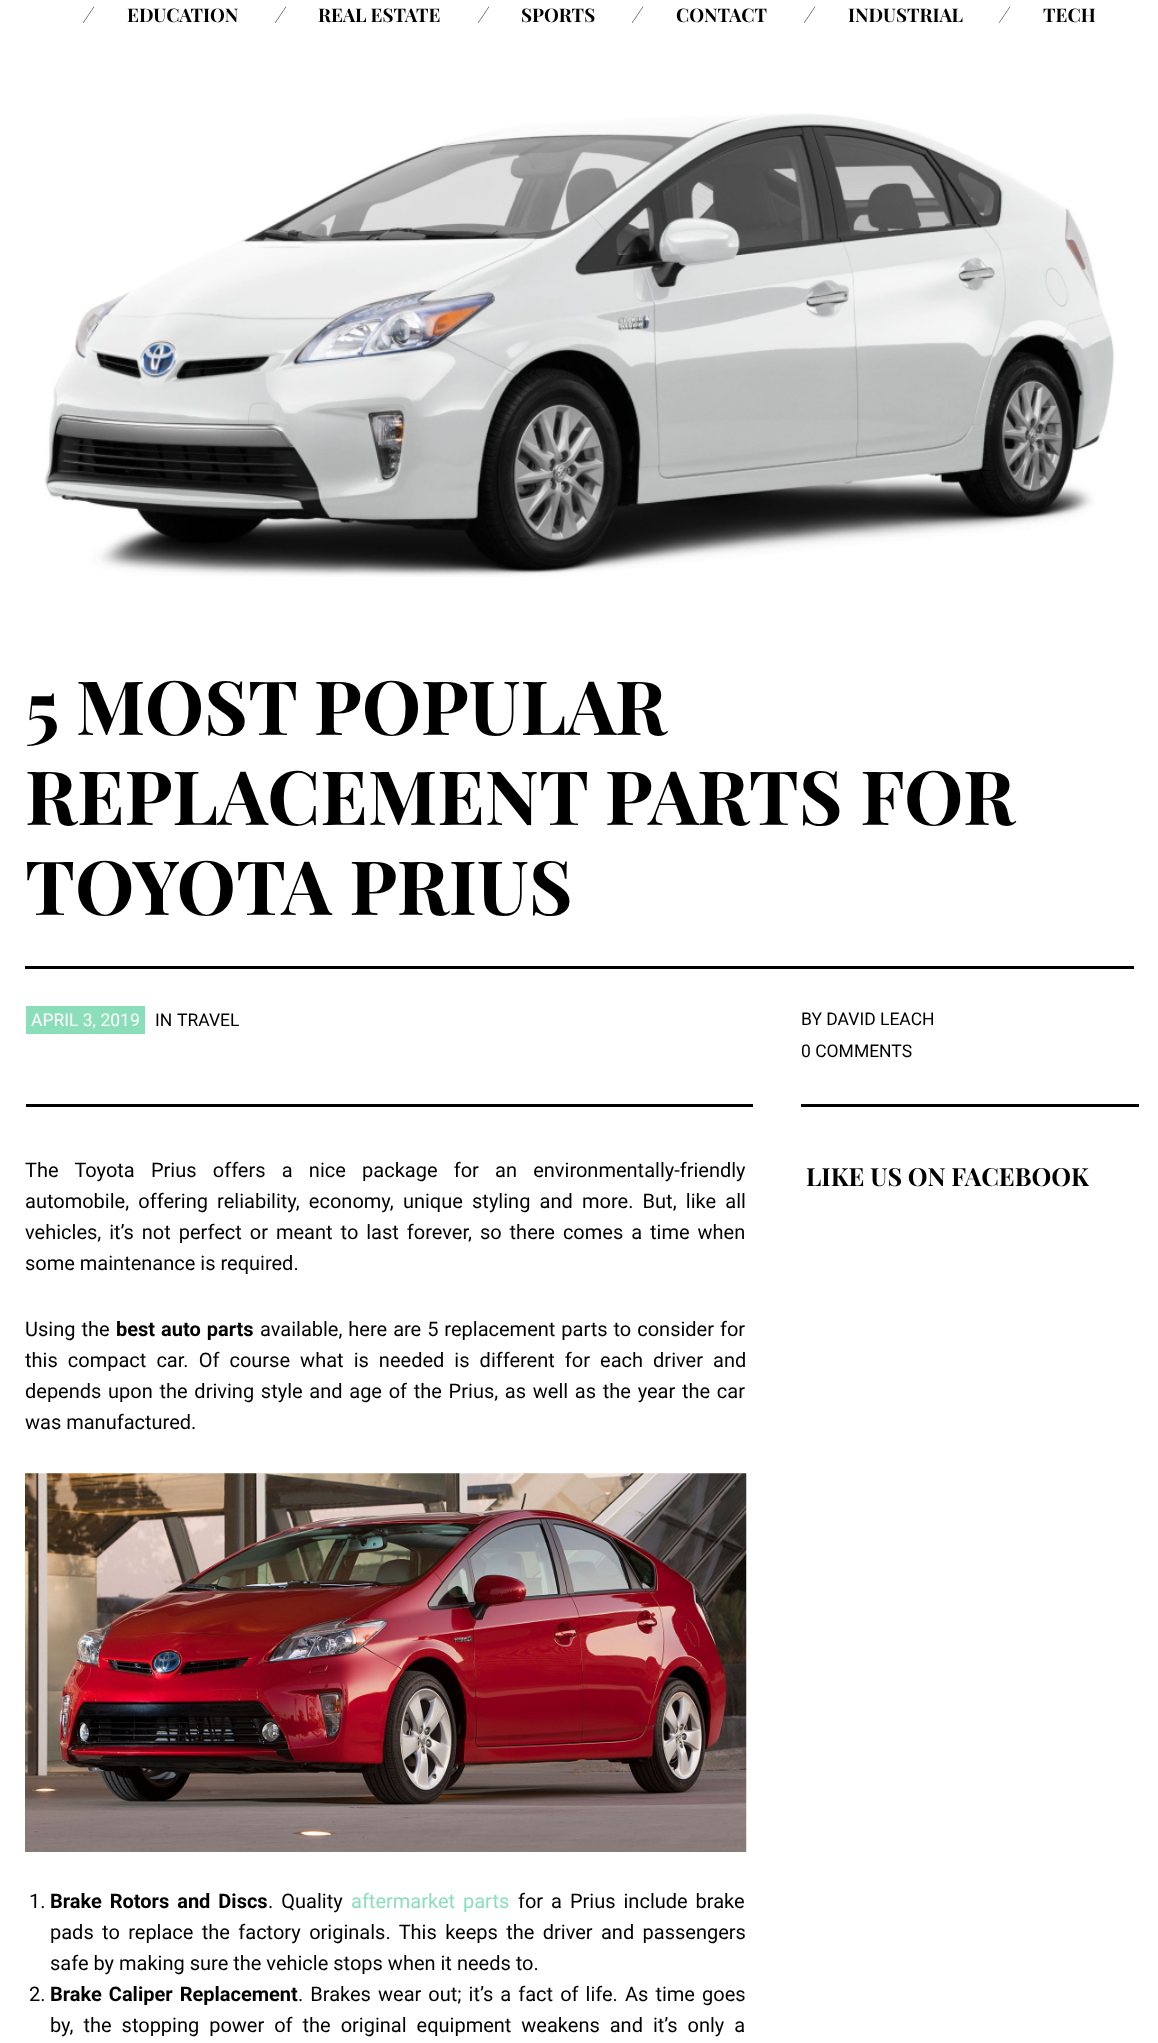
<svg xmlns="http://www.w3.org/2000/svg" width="1158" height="2043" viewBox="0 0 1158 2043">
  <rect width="100%" height="100%" fill="#fff"/>
  <image x="44" y="113" width="1071" height="464" href="img/1.png"/>
  <path d="M25 966h1109v3H25z" fill="#000"/>
  <path d="M26 1104h727v3H26z" fill="#000"/>
  <path d="M26 1006h119v28H26z" fill="#8bdeba"/>
  <path d="M801 1104h338v3H801z" fill="#000"/>
  <image x="25" y="1473" width="722" height="379" href="img/2.png"/>
  <g font-family="Playfair Display" font-size="18.75" font-weight="bold" fill="#000">
    <text x="88" y="22">⁄</text>
    <text x="127" y="22">EDUCATION</text>
    <text x="280" y="22">⁄</text>
    <text x="318" y="22">REAL ESTATE</text>
    <text x="483" y="22">⁄</text>
    <text x="521" y="22">SPORTS</text>
    <text x="637" y="22">⁄</text>
    <text x="676" y="22">CONTACT</text>
    <text x="809" y="22">⁄</text>
    <text x="848" y="22">INDUSTRIAL</text>
    <text x="1004" y="22">⁄</text>
    <text x="1043" y="22">TECH</text>
  </g>
  <g font-family="Playfair Display" font-size="75" font-weight="bold" fill="#000">
    <text x="25" y="735">5 MOST POPULAR</text>
    <text x="25" y="825">REPLACEMENT PARTS FOR</text>
    <text x="25" y="915">TOYOTA PRIUS</text>
  </g>
  <text x="31" y="1026" font-family="Roboto" font-size="17.5" fill="#fff">APRIL 3, 2019</text>
  <g font-family="Roboto" font-size="17.5" fill="#000">
    <text x="155" y="1026">IN</text>
    <text x="177" y="1026">TRAVEL</text>
    <text x="801" y="1025">BY DAVID LEACH</text>
    <text x="801" y="1057">0 COMMENTS</text>
  </g>
  <g font-family="Roboto" font-size="20" fill="#000">
    <text x="25" y="1177" word-spacing="11.25">The Toyota Prius offers a nice package for an environmentally-friendly</text>
    <text x="25" y="1208" word-spacing="4.25">automobile, offering reliability, economy, unique styling and more. But, like all</text>
    <text x="25" y="1239" word-spacing="3">vehicles, it’s not perfect or meant to last forever, so there comes a time when</text>
    <text x="25" y="1270">some maintenance is required.</text>
    <text x="25" y="1336" word-spacing="1">Using the</text>
  </g>
  <text x="116" y="1336" word-spacing="1" font-family="Roboto" font-size="20" font-weight="bold" fill="#000">best auto parts</text>
  <g font-family="Roboto" font-size="20" fill="#000">
    <text x="260" y="1336" word-spacing="1">available, here are 5 replacement parts to consider for</text>
    <text x="25" y="1367" word-spacing="5.1">this compact car. Of course what is needed is different for each driver and</text>
    <text x="25" y="1398" word-spacing="1.75">depends upon the driving style and age of the Prius, as well as the year the car</text>
    <text x="25" y="1429">was manufactured.</text>
    <text x="29" y="1908">1.</text>
  </g>
  <text x="50" y="1908" word-spacing="3" font-family="Roboto" font-size="20" font-weight="bold" fill="#000">Brake Rotors and Discs</text>
  <text x="268" y="1908" word-spacing="3" font-family="Roboto" font-size="20" fill="#000">. Quality</text>
  <text x="351" y="1908" word-spacing="3" font-family="Roboto" font-size="20" fill="#8bdeba">aftermarket parts</text>
  <g font-family="Roboto" font-size="20" fill="#000">
    <text x="518" y="1908" word-spacing="3">for a Prius include brake</text>
    <text x="50" y="1939" word-spacing="3.4">pads to replace the factory originals. This keeps the driver and passengers</text>
    <text x="50" y="1970">safe by making sure the vehicle stops when it needs to.</text>
    <text x="29" y="2001">2.</text>
  </g>
  <text x="50" y="2001" word-spacing="2.1" font-family="Roboto" font-size="20" font-weight="bold" fill="#000">Brake Caliper Replacement</text>
  <g font-family="Roboto" font-size="20" fill="#000">
    <text x="298" y="2001" word-spacing="2.1">. Brakes wear out; it’s a fact of life. As time goes</text>
    <text x="50" y="2032" word-spacing="5">by, the stopping power of the original equipment weakens and it’s only a</text>
  </g>
  <text x="806" y="1186" font-family="Playfair Display" font-size="25" font-weight="bold" fill="#000">LIKE US ON FACEBOOK</text>
</svg>
